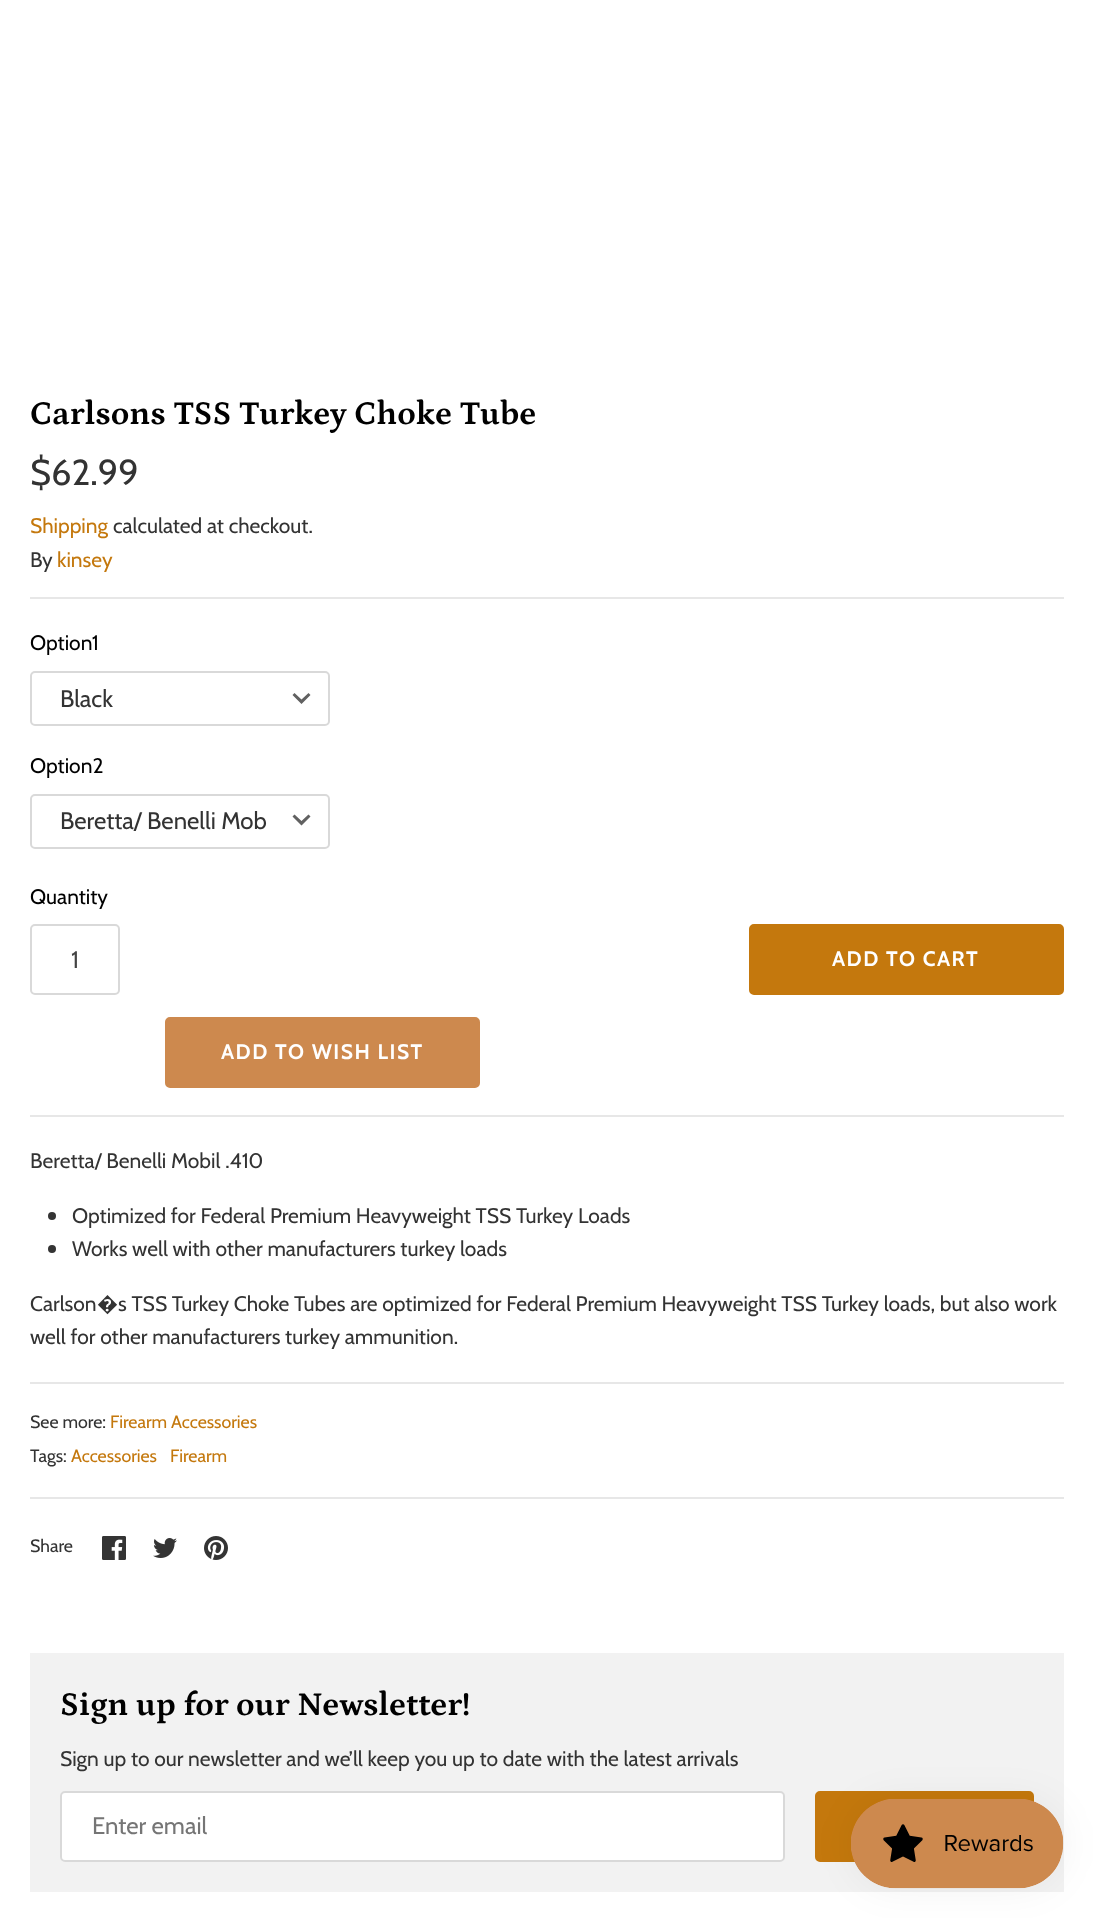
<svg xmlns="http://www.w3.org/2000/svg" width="1093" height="1918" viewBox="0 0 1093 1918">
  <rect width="100%" height="100%" fill="#fff"/>
  <path d="M30 597h1034v2H30z" fill="#e7e7e7"/>
  <path d="M294.5 693L301.5 699.5L308.5 693L310.5 695L301.5 704L292.5 695Z" fill="#616161"/>
  <rect x="31" y="672" width="298" height="53" rx="4" fill="none" stroke="#d9d9d9" stroke-width="2"/>
  <path d="M294.5 814.5L301.5 821L308.5 814.5L310.5 816.5L301.5 825.5L292.5 816.5Z" fill="#616161"/>
  <rect x="31" y="795" width="298" height="53" rx="4" fill="none" stroke="#d9d9d9" stroke-width="2"/>
  <rect x="31" y="925" width="88" height="69" rx="4" fill="none" stroke="#d9d9d9" stroke-width="2"/>
  <rect x="750" y="925" width="313" height="69" rx="4" fill="#c4780d" stroke="#c4780d" stroke-width="2"/>
  <rect x="166" y="1018" width="313" height="69" rx="4" fill="#cd894e" stroke="#cd894e" stroke-width="2"/>
  <path d="M30 1115h1034v2H30z" fill="#e7e7e7"/>
  <circle cx="52" cy="1216" r="4" fill="#343434"/>
  <circle cx="52" cy="1249" r="4" fill="#343434"/>
  <path d="M30 1382h1034v2H30z" fill="#e7e7e7"/>
  <path d="M30 1497h1034v2H30z" fill="#e7e7e7"/>
  <image x="102" y="1536" width="24" height="24" href="img/1.png"/>
  <image x="153" y="1538" width="24" height="20" href="img/2.png"/>
  <image x="204" y="1536" width="24" height="24" href="img/3.png"/>
  <path d="M30 1653h1034v239H30z" fill="#f2f2f2"/>
  <rect x="60" y="1791" width="725" height="71" rx="5" fill="#fff"/>
  <rect x="61" y="1792" width="723" height="69" rx="4" fill="none" stroke="#00000026" stroke-width="2"/>
  <rect x="816" y="1792" width="217" height="69" rx="4" fill="#c4780d" stroke="#c4780d" stroke-width="2"/>
  <rect x="851" y="1799" width="213" height="90" rx="45" fill="#0000000d" filter="blur(19px)"/>
  <image x="851" y="1799" width="213" height="90" href="img/4.png"/>
  <text x="30" y="424" font-family="Petrona" font-size="33.6" font-weight="bold" fill="#000">Carlsons TSS Turkey Choke Tube</text>
  <text x="30" y="485" font-family="Cabin" font-size="36" fill="#333">$62.99</text>
  <text x="30" y="533" font-family="Cabin" font-size="21" fill="#c4780d">Shipping</text>
  <g font-family="Cabin" font-size="21" fill="#333">
    <text x="113" y="533">calculated at checkout.</text>
    <text x="30" y="567">By</text>
  </g>
  <text x="57" y="567" font-family="Cabin" font-size="21" fill="#c4780d">kinsey</text>
  <text x="30" y="650" font-family="Cabin" font-size="21" fill="#000">Option1</text>
  <text x="60" y="707" font-family="Cabin" font-size="24" fill="#333">Black</text>
  <text x="30" y="773" font-family="Cabin" font-size="21" fill="#000">Option2</text>
  <text x="60" y="829" font-family="Cabin" font-size="24" fill="#333">Beretta/ Benelli Mob</text>
  <text x="30" y="904" font-family="Cabin" font-size="21" fill="#000">Quantity</text>
  <text x="71" y="968" font-family="Cabin" font-size="24" fill="#444">1</text>
  <g font-family="Cabin" font-size="21" font-weight="bold" letter-spacing="1.5" fill="#fff">
    <text x="832" y="966">ADD TO CART</text>
    <text x="221" y="1059">ADD TO WISH LIST</text>
  </g>
  <g font-family="Cabin" font-size="21" fill="#333">
    <text x="30" y="1168">Beretta/ Benelli Mobil .410</text>
    <text x="72" y="1223">Optimized for Federal Premium Heavyweight TSS Turkey Loads</text>
    <text x="72" y="1256">Works well with other manufacturers turkey loads</text>
    <text x="30" y="1311">Carlson</text>
  </g>
  <text x="97" y="1311" font-family="Noto Sans" font-size="21" fill="#333">�</text>
  <g font-family="Cabin" font-size="21" fill="#333">
    <text x="118" y="1311">s TSS Turkey Choke Tubes are optimized for Federal Premium Heavyweight TSS Turkey loads, but also work</text>
    <text x="30" y="1344">well for other manufacturers turkey ammunition.</text>
  </g>
  <text x="30" y="1428" font-family="Cabin" font-size="17.75" fill="#333">See more:</text>
  <text x="110" y="1428" font-family="Cabin" font-size="17.75" fill="#c4780d">Firearm Accessories</text>
  <text x="30" y="1462" font-family="Cabin" font-size="17.75" fill="#333">Tags:</text>
  <g font-family="Cabin" font-size="17.75" fill="#c4780d">
    <text x="71" y="1462">Accessories</text>
    <text x="170" y="1462">Firearm</text>
  </g>
  <text x="30" y="1552" font-family="Cabin" font-size="17.75" fill="#333">Share</text>
  <text x="60" y="1715" font-family="Petrona" font-size="33.6" font-weight="bold" fill="#000">Sign up for our Newsletter!</text>
  <text x="60" y="1766" font-family="Cabin" font-size="21" fill="#333">Sign up to our newsletter and we’ll keep you up to date with the latest arrivals</text>
  <text x="92" y="1834" font-family="Cabin" font-size="24" fill="#757575">Enter email</text>
</svg>
